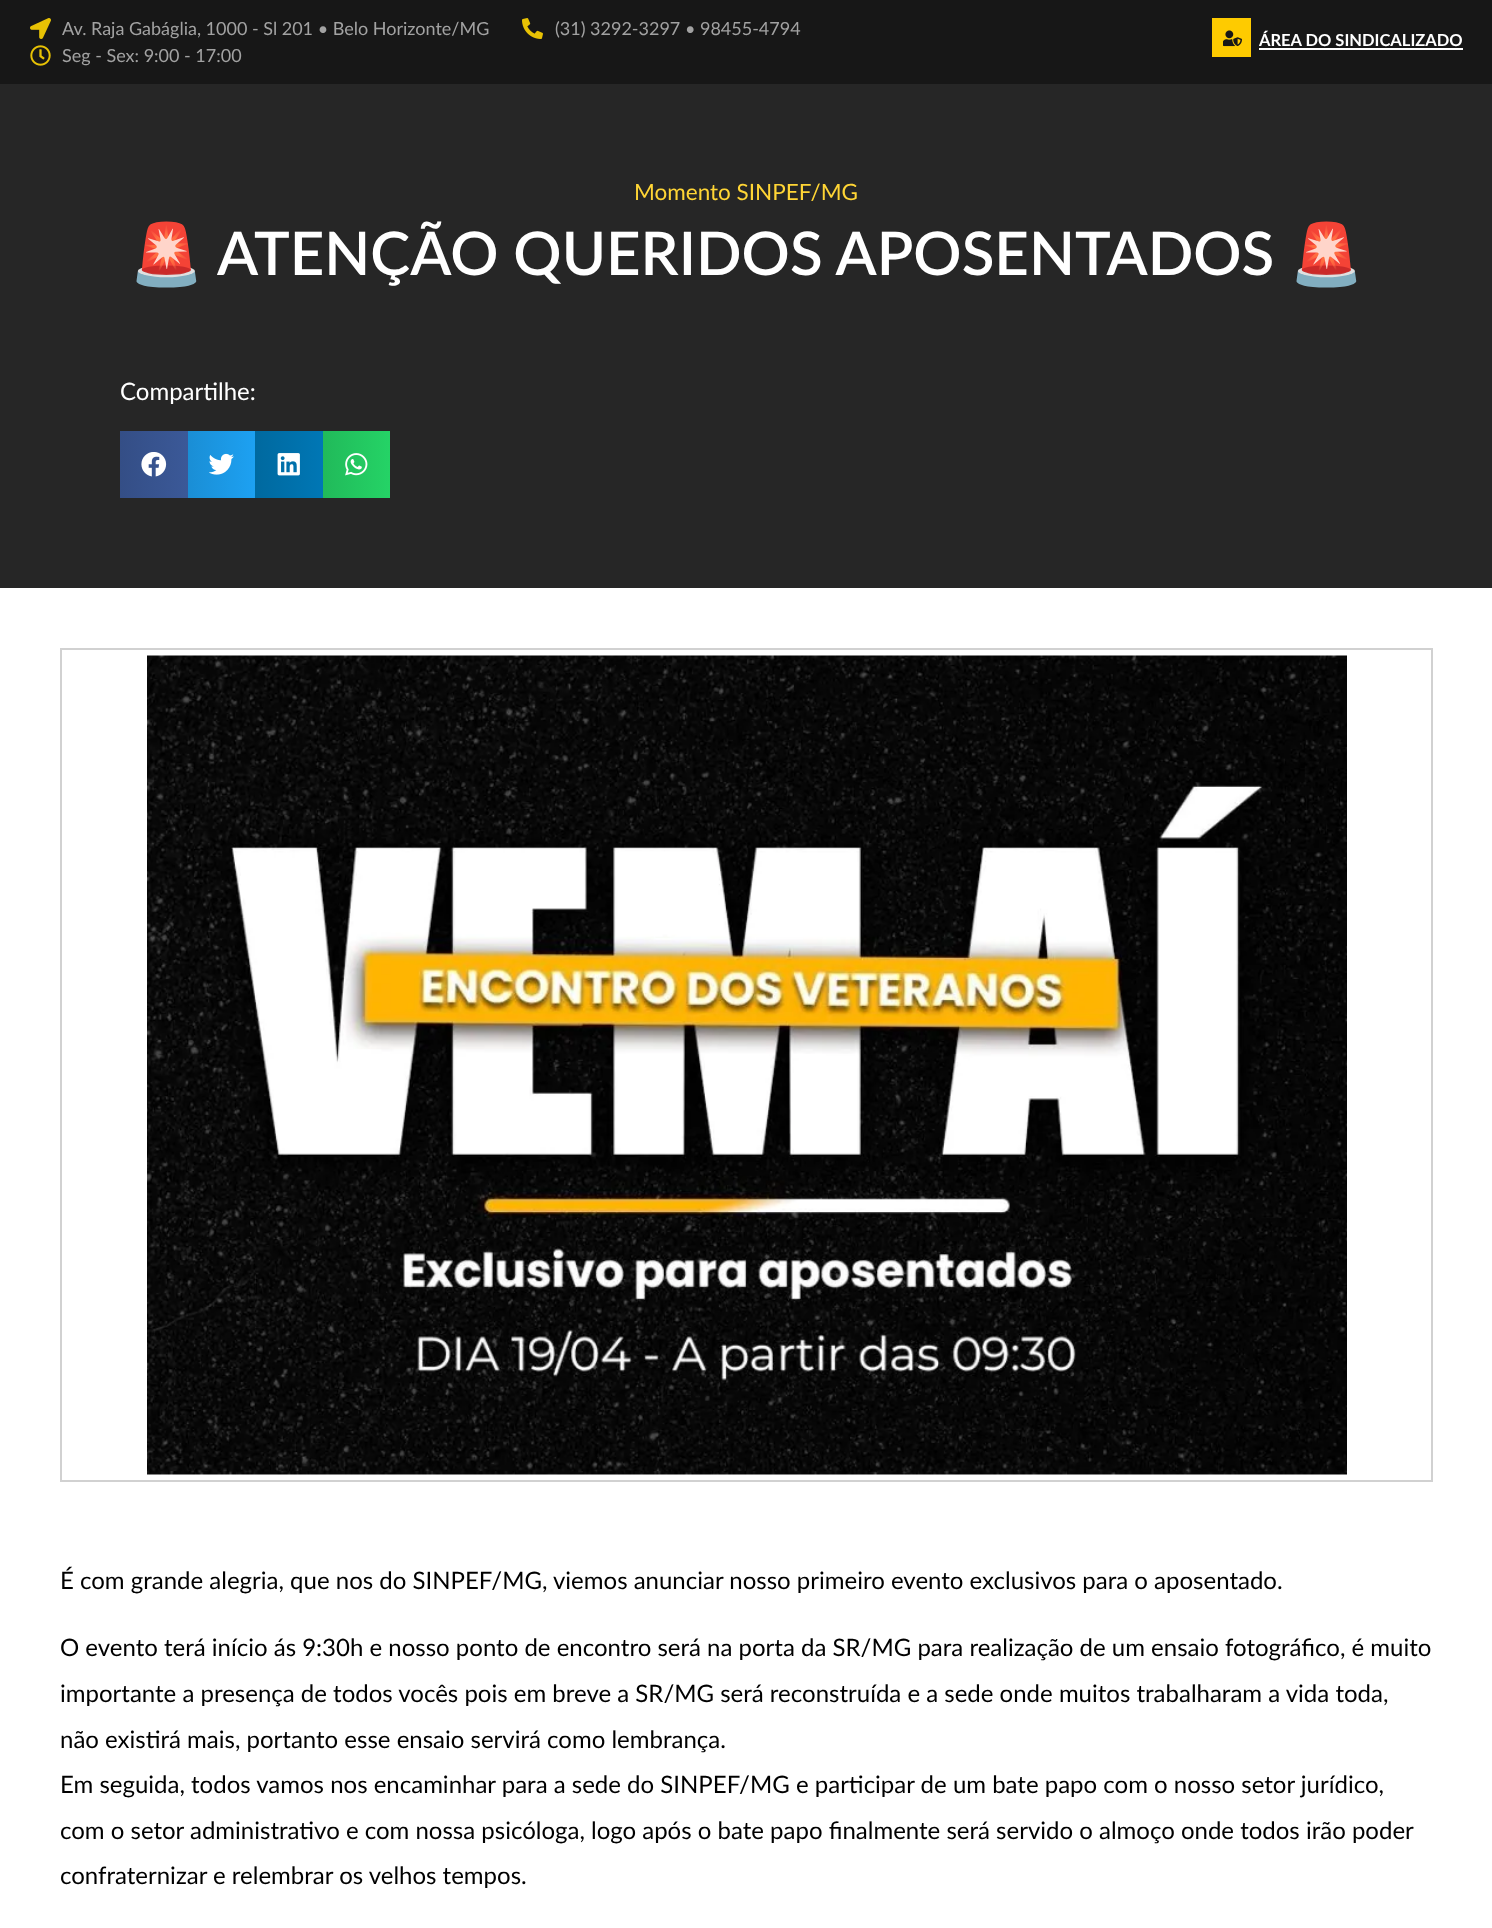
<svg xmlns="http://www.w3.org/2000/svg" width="1492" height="1928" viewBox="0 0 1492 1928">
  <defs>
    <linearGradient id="g1" gradientUnits="userSpaceOnUse" x1="120" y1="464" x2="188" y2="464"><stop offset="0" stop-color="#344e86"/><stop offset="1" stop-color="#3b5998"/></linearGradient>
    <linearGradient id="g2" gradientUnits="userSpaceOnUse" x1="188" y1="464" x2="255" y2="464"><stop offset="0" stop-color="#1a8ed5"/><stop offset="1" stop-color="#1da1f2"/></linearGradient>
    <linearGradient id="g3" gradientUnits="userSpaceOnUse" x1="255" y1="464" x2="323" y2="464"><stop offset="0" stop-color="#00699f"/><stop offset="1" stop-color="#0077b5"/></linearGradient>
    <linearGradient id="g4" gradientUnits="userSpaceOnUse" x1="323" y1="464" x2="390" y2="464"><stop offset="0" stop-color="#21ba5a"/><stop offset="1" stop-color="#25d366"/></linearGradient>
  </defs>
  <rect width="100%" height="100%" fill="#fff"/>
  <path d="M0 0h1492v84H0z" fill="#171717"/>
  <image x="30" y="18" width="21" height="21" href="img/1.png"/>
  <image x="522" y="18" width="21" height="21" href="img/2.png"/>
  <image x="30" y="45" width="21" height="21" href="img/3.png"/>
  <path d="M1212 18h39v39H1212z" fill="#fecb00"/>
  <image x="1223" y="30" width="19" height="17" href="img/4.png"/>
  <path d="M1259 48h204v2H1259z" fill="#fff"/>
  <path d="M0 84h1492v504H0z" fill="#262626"/>
  <path d="M120 431h68v67H120z" fill="url(#g1)"/>
  <image x="141" y="452" width="26" height="25" href="img/5.png"/>
  <path d="M188 431h67v67H188z" fill="url(#g2)"/>
  <image x="209" y="453" width="25" height="22" href="img/6.png"/>
  <path d="M255 431h68v67H255z" fill="url(#g3)"/>
  <image x="277" y="453" width="23" height="23" href="img/7.png"/>
  <path d="M323 431h67v67H323z" fill="url(#g4)"/>
  <image x="345" y="453" width="23" height="23" href="img/8.png"/>
  <path d="M61 649h1371v832H61z" fill="none" stroke="#d1d1d1" stroke-width="2"/>
  <image x="147" y="655" width="1200" height="820" href="img/9.png"/>
  <g font-family="Lato" font-size="18" fill="#a2a2a2">
    <text x="62" y="35">Av. Raja Gabáglia, 1000 - Sl 201 • Belo Horizonte/MG</text>
    <text x="555" y="35">(31) 3292-3297 • 98455-4794</text>
    <text x="62" y="62">Seg - Sex: 9:00 - 17:00</text>
  </g>
  <text x="1259" y="46" font-family="Lato" font-size="16.5" font-weight="bold" fill="#fff">ÁREA DO SINDICALIZADO</text>
  <text x="634" y="200" font-family="Lato" font-size="22.5" fill="#ffd535">Momento SINPEF/MG</text>
  <text x="129" y="275" font-family="Noto Color Emoji" font-size="60" font-weight="bold" fill="#fff">🚨</text>
  <text x="217" y="275" font-family="Lato" font-size="60" font-weight="600" fill="#fff">ATENÇÃO QUERIDOS APOSENTADOS</text>
  <text x="1289" y="275" font-family="Noto Color Emoji" font-size="60" font-weight="bold" fill="#fff">🚨</text>
  <text x="120" y="400" font-family="Lato" font-size="24" fill="#fff">Compartilhe:</text>
  <g font-family="Lato" font-size="24" fill="#000">
    <text x="60" y="1589">É com grande alegria, que nos do SINPEF/MG, viemos anunciar nosso primeiro evento exclusivos para o aposentado.</text>
    <text x="60" y="1656">O evento terá início ás 9:30h e nosso ponto de encontro será na porta da SR/MG para realização de um ensaio fotográfico, é muito</text>
    <text x="60" y="1702">importante a presença de todos vocês pois em breve a SR/MG será reconstruída e a sede onde muitos trabalharam a vida toda,</text>
    <text x="60" y="1748">não existirá mais, portanto esse ensaio servirá como lembrança.</text>
    <text x="60" y="1793">Em seguida, todos vamos nos encaminhar para a sede do SINPEF/MG e participar de um bate papo com o nosso setor jurídico,</text>
    <text x="60" y="1839">com o setor administrativo e com nossa psicóloga, logo após o bate papo finalmente será servido o almoço onde todos irão poder</text>
    <text x="60" y="1884">confraternizar e relembrar os velhos tempos.</text>
  </g>
</svg>
